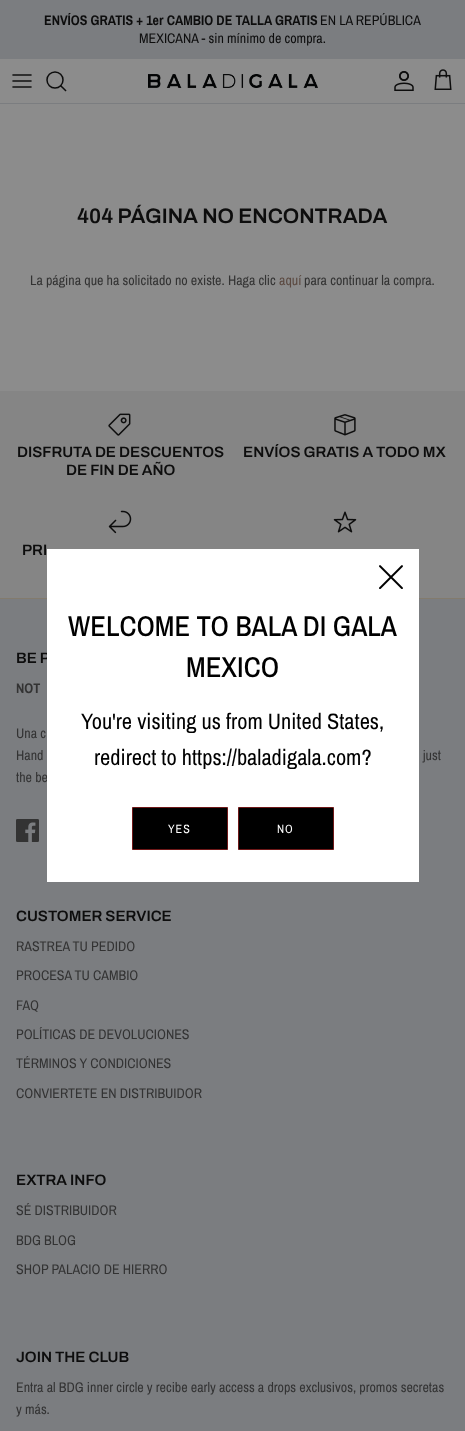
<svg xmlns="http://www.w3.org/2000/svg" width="465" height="1431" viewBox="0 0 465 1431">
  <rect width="100%" height="100%" fill="#8c8c8c"/>
  <path d="M0 0h465v59H0z" fill="#7b7d80"/>
  <path d="M0 103h465v1H0z" fill="#7b7d80"/>
  <image x="12" y="74" width="20" height="14" href="img/1.png"/>
  <circle cx="55" cy="80" r="8" fill="none" stroke="#0d0d0d" stroke-width="1.5"/>
  <path d="M61 86L65.5 90.5" fill="none" stroke="#0d0d0d" stroke-width="1.5" stroke-linecap="square"/>
  <image x="148" y="74" width="170" height="14" href="img/2.png"/>
  <image x="394" y="71" width="20" height="20" href="img/3.png"/>
  <image x="434" y="69" width="18" height="21" href="img/4.png"/>
  <path d="M0 599h465v832H0z" fill="#7b7d80"/>
  <path d="M0 391h465v207H0z" fill="#858585"/>
  <image x="108" y="413" width="23" height="23" href="img/5.png"/>
  <image x="334" y="414" width="22" height="22" href="img/6.png"/>
  <image x="333" y="511" width="24" height="22" href="img/7.png"/>
  <image x="108" y="510" width="24" height="24" href="img/8.png"/>
  <path d="M0 598h465v1H0z" fill="#837b6d"/>
  <image x="16" y="819" width="23" height="23" href="img/9.png"/>
  <text x="44" y="25" font-family="Archivo Narrow" font-size="14" font-weight="bold" fill="#0d0d0d">ENVÍOS GRATIS + 1er CAMBIO DE TALLA GRATIS</text>
  <g font-family="Archivo Narrow" font-size="14" fill="#0d0d0d">
    <text x="320" y="25">EN LA REPÚBLICA</text>
    <text x="139" y="43">MEXICANA - sin mínimo de compra.</text>
  </g>
  <text x="77" y="223" font-family="Archivo" font-size="21" font-weight="600" fill="#0d0d0d">404 PÁGINA NO ENCONTRADA</text>
  <text x="30" y="285" font-family="Archivo Narrow" font-size="14" fill="#333">La página que ha solicitado no existe. Haga clic</text>
  <text x="279" y="285" font-family="Archivo Narrow" font-size="14" fill="#5b4940">aquí</text>
  <text x="304" y="285" font-family="Archivo Narrow" font-size="14" fill="#333">para continuar la compra.</text>
  <g font-family="Archivo" font-size="15.1" font-weight="600" fill="#0d0d0d">
    <text x="17" y="457">DISFRUTA DE DESCUENTOS</text>
    <text x="66" y="475">DE FIN DE AÑO</text>
    <text x="243" y="457">ENVÍOS GRATIS A TODO MX</text>
    <text x="22" y="555">PRI</text>
    <text x="16" y="663">BE P</text>
  </g>
  <text x="16" y="693" font-family="Archivo Narrow" font-size="14" font-weight="bold" fill="#333">NOT</text>
  <g font-family="Archivo Narrow" font-size="14" fill="#333">
    <text x="16" y="738">Una c</text>
    <text x="16" y="760">Hand</text>
    <text x="423" y="760">just</text>
    <text x="16" y="782">the be</text>
  </g>
  <text x="16" y="921" font-family="Archivo" font-size="15.1" font-weight="600" fill="#0d0d0d">CUSTOMER SERVICE</text>
  <g font-family="Archivo Narrow" font-size="14" fill="#333">
    <text x="16" y="951">RASTREA TU PEDIDO</text>
    <text x="16" y="980">PROCESA TU CAMBIO</text>
    <text x="16" y="1010">FAQ</text>
    <text x="16" y="1039">POLÍTICAS DE DEVOLUCIONES</text>
    <text x="16" y="1068">TÉRMINOS Y CONDICIONES</text>
    <text x="16" y="1098">CONVIERTETE EN DISTRIBUIDOR</text>
  </g>
  <text x="16" y="1185" font-family="Archivo" font-size="15.1" font-weight="600" fill="#0d0d0d">EXTRA INFO</text>
  <g font-family="Archivo Narrow" font-size="14" fill="#333">
    <text x="16" y="1215">SÉ DISTRIBUIDOR</text>
    <text x="16" y="1245">BDG BLOG</text>
    <text x="16" y="1274">SHOP PALACIO DE HIERRO</text>
  </g>
  <text x="16" y="1362" font-family="Archivo" font-size="15.1" font-weight="600" fill="#0d0d0d">JOIN THE CLUB</text>
  <g font-family="Archivo Narrow" font-size="14" fill="#333">
    <text x="16" y="1392">Entra al BDG inner circle y recibe early access a drops exclusivos, promos secretas</text>
    <text x="16" y="1414">y más.</text>
  </g>
  <path d="M47 549h372v333H47z" fill="#fff"/>
  <image x="379" y="565" width="24" height="24" href="img/10.png"/>
  <g font-family="Archivo Narrow" font-size="28.75" font-weight="500" fill="#000">
    <text x="68" y="636">WELCOME TO BALA DI GALA</text>
    <text x="186" y="677">MEXICO</text>
  </g>
  <g font-family="Archivo Narrow" font-size="22.4" fill="#000">
    <text x="81" y="729">You're visiting us from United States,</text>
    <text x="94" y="765">redirect to https://baladigala.com?</text>
  </g>
  <path d="M132.5 807.5h95v42H132.5z" fill="#000" stroke="#6f1818"/>
  <text x="168" y="833" font-family="Archivo Narrow" font-size="12" letter-spacing="1" fill="#fff">YES</text>
  <path d="M238.5 807.5h95v42H238.5z" fill="#000" stroke="#6f1818"/>
  <text x="277" y="833" font-family="Archivo Narrow" font-size="12" letter-spacing="1" fill="#fff">NO</text>
</svg>
